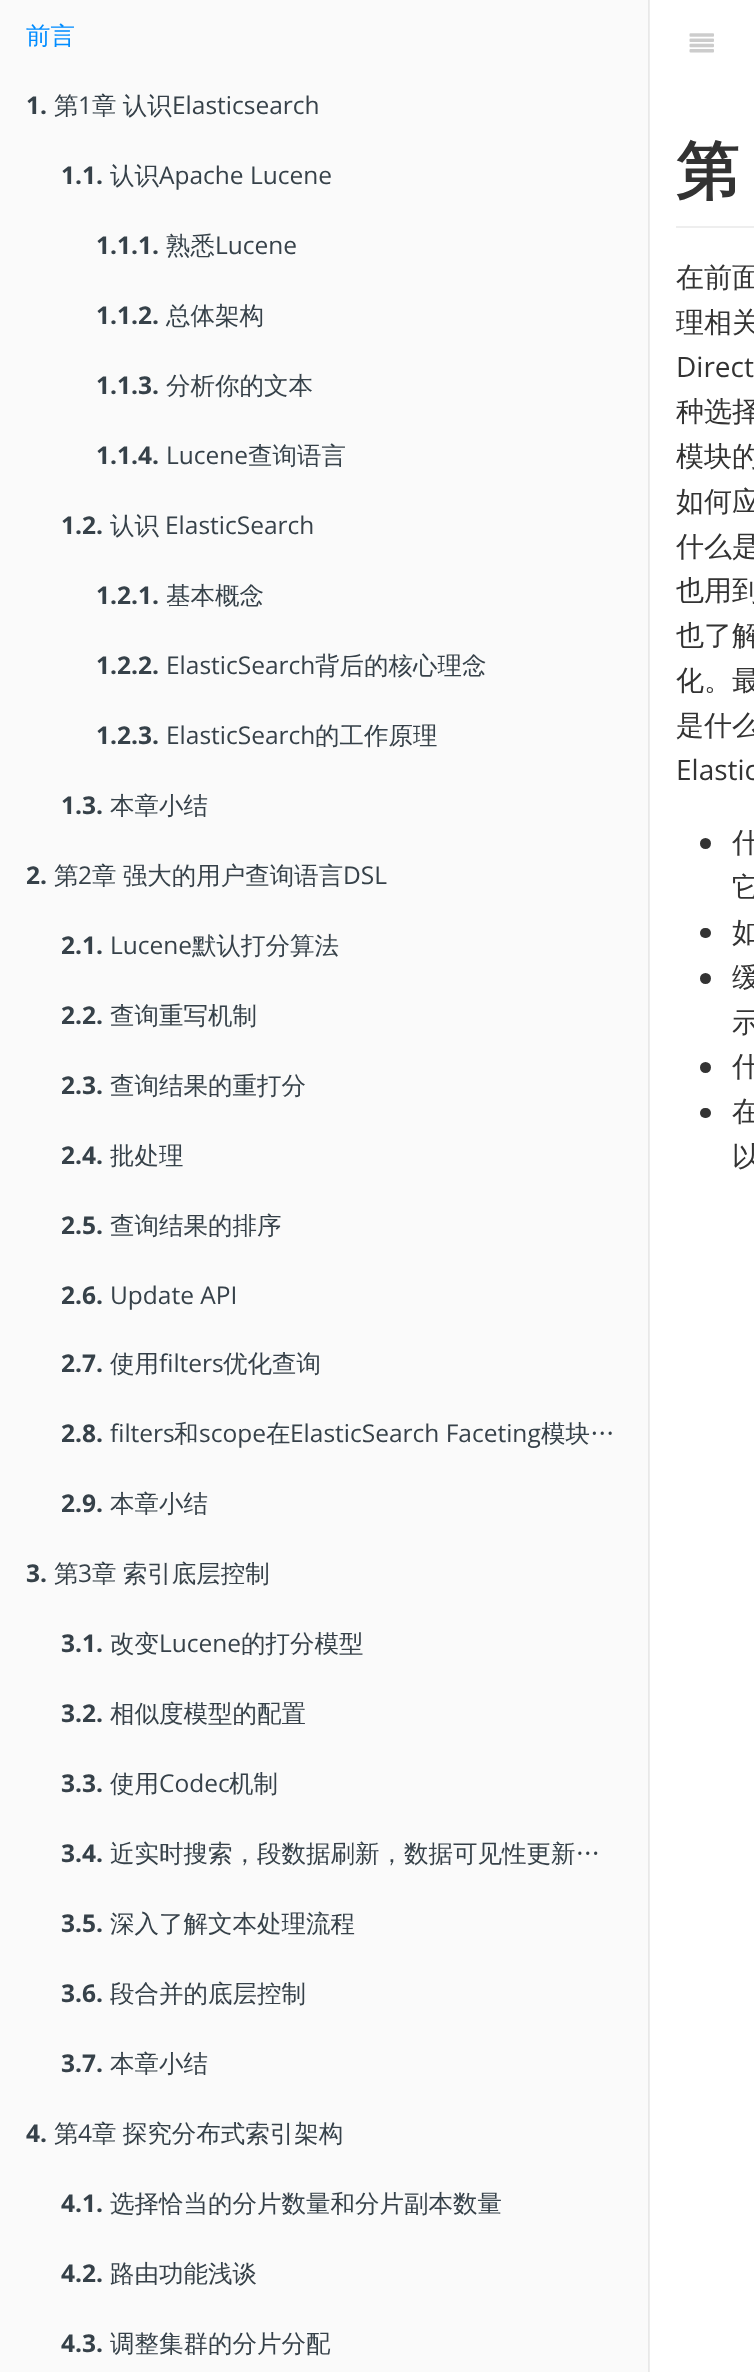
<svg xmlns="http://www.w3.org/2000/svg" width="754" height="2372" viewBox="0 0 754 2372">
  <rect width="100%" height="100%" fill="#fff"/>
  <path d="M649 0h1v2372H649z" fill="#ededed"/>
  <path d="M0 0h648v2372H0z" fill="#fafafa"/>
  <path d="M648 0h1v2372H648z" fill="#e8e8e8"/>
  <image x="689" y="33" width="25" height="20" href="img/1.png"/>
  <path d="M676 226h78v2H676z" fill="#eee"/>
  <circle cx="705.5" cy="843.5" r="5.5" fill="#333"/>
  <rect x="700" y="928" width="11" height="10" rx="5" fill="#333"/>
  <circle cx="705.5" cy="978.5" r="5.5" fill="#333"/>
  <circle cx="705.5" cy="1067.5" r="5.5" fill="#333"/>
  <rect x="700" y="1108" width="11" height="10" rx="5" fill="#333"/>
  <text x="26" y="44" font-family="WenQuanYi Zen Hei" font-size="24.5" font-weight="500" fill="#008cff">前言</text>
  <text x="26" y="114" font-family="Open Sans" font-size="24.5" font-weight="bold" fill="#364149">1.</text>
  <text x="54" y="114" font-family="WenQuanYi Zen Hei" font-size="24.5" font-weight="500" fill="#364149">第</text>
  <text x="78" y="114" font-family="Open Sans" font-size="24.5" fill="#364149">1</text>
  <text x="92" y="114" word-spacing="-1" font-family="WenQuanYi Zen Hei" font-size="24.5" font-weight="500" fill="#364149">章 认识</text>
  <text x="172" y="114" font-family="Open Sans" font-size="24.5" fill="#364149">Elasticsearch</text>
  <text x="61" y="184" font-family="Open Sans" font-size="24.5" font-weight="bold" fill="#364149">1.1.</text>
  <text x="110" y="184" font-family="WenQuanYi Zen Hei" font-size="24.5" font-weight="500" fill="#364149">认识</text>
  <text x="159" y="184" font-family="Open Sans" font-size="24.5" fill="#364149">Apache Lucene</text>
  <text x="96" y="254" font-family="Open Sans" font-size="24.5" font-weight="bold" fill="#364149">1.1.1.</text>
  <text x="166" y="254" font-family="WenQuanYi Zen Hei" font-size="24.5" font-weight="500" fill="#364149">熟悉</text>
  <text x="215" y="254" font-family="Open Sans" font-size="24.5" fill="#364149">Lucene</text>
  <text x="96" y="324" font-family="Open Sans" font-size="24.5" font-weight="bold" fill="#364149">1.1.2.</text>
  <text x="166" y="324" font-family="WenQuanYi Zen Hei" font-size="24.5" font-weight="500" fill="#364149">总体架构</text>
  <text x="96" y="394" font-family="Open Sans" font-size="24.5" font-weight="bold" fill="#364149">1.1.3.</text>
  <text x="166" y="394" font-family="WenQuanYi Zen Hei" font-size="24.5" font-weight="500" fill="#364149">分析你的文本</text>
  <text x="96" y="464" font-family="Open Sans" font-size="24.5" font-weight="bold" fill="#364149">1.1.4.</text>
  <text x="166" y="464" font-family="Open Sans" font-size="24.5" fill="#364149">Lucene</text>
  <text x="248" y="464" font-family="WenQuanYi Zen Hei" font-size="24.5" font-weight="500" fill="#364149">查询语言</text>
  <text x="61" y="534" font-family="Open Sans" font-size="24.5" font-weight="bold" fill="#364149">1.2.</text>
  <text x="110" y="534" font-family="WenQuanYi Zen Hei" font-size="24.5" font-weight="500" fill="#364149">认识</text>
  <text x="165" y="534" font-family="Open Sans" font-size="24.5" fill="#364149">ElasticSearch</text>
  <text x="96" y="604" font-family="Open Sans" font-size="24.5" font-weight="bold" fill="#364149">1.2.1.</text>
  <text x="166" y="604" font-family="WenQuanYi Zen Hei" font-size="24.5" font-weight="500" fill="#364149">基本概念</text>
  <text x="96" y="674" font-family="Open Sans" font-size="24.5" font-weight="bold" fill="#364149">1.2.2.</text>
  <text x="166" y="674" font-family="Open Sans" font-size="24.5" fill="#364149">ElasticSearch</text>
  <text x="315" y="674" font-family="WenQuanYi Zen Hei" font-size="24.5" font-weight="500" fill="#364149">背后的核心理念</text>
  <text x="96" y="744" font-family="Open Sans" font-size="24.5" font-weight="bold" fill="#364149">1.2.3.</text>
  <text x="166" y="744" font-family="Open Sans" font-size="24.5" fill="#364149">ElasticSearch</text>
  <text x="315" y="744" font-family="WenQuanYi Zen Hei" font-size="24.5" font-weight="500" fill="#364149">的工作原理</text>
  <text x="61" y="814" font-family="Open Sans" font-size="24.5" font-weight="bold" fill="#364149">1.3.</text>
  <text x="110" y="814" font-family="WenQuanYi Zen Hei" font-size="24.5" font-weight="500" fill="#364149">本章小结</text>
  <text x="26" y="884" font-family="Open Sans" font-size="24.5" font-weight="bold" fill="#364149">2.</text>
  <text x="54" y="884" font-family="WenQuanYi Zen Hei" font-size="24.5" font-weight="500" fill="#364149">第</text>
  <text x="78" y="884" font-family="Open Sans" font-size="24.5" fill="#364149">2</text>
  <text x="92" y="884" word-spacing="-1" font-family="WenQuanYi Zen Hei" font-size="24.5" font-weight="500" fill="#364149">章 强大的用户查询语言</text>
  <text x="343" y="884" font-family="Open Sans" font-size="24.5" fill="#364149">DSL</text>
  <text x="61" y="954" font-family="Open Sans" font-size="24.5" font-weight="bold" fill="#364149">2.1.</text>
  <text x="110" y="954" font-family="Open Sans" font-size="24.5" fill="#364149">Lucene</text>
  <text x="192" y="954" font-family="WenQuanYi Zen Hei" font-size="24.5" font-weight="500" fill="#364149">默认打分算法</text>
  <text x="61" y="1024" font-family="Open Sans" font-size="24.5" font-weight="bold" fill="#364149">2.2.</text>
  <text x="110" y="1024" font-family="WenQuanYi Zen Hei" font-size="24.5" font-weight="500" fill="#364149">查询重写机制</text>
  <text x="61" y="1094" font-family="Open Sans" font-size="24.5" font-weight="bold" fill="#364149">2.3.</text>
  <text x="110" y="1094" font-family="WenQuanYi Zen Hei" font-size="24.5" font-weight="500" fill="#364149">查询结果的重打分</text>
  <text x="61" y="1164" font-family="Open Sans" font-size="24.5" font-weight="bold" fill="#364149">2.4.</text>
  <text x="110" y="1164" font-family="WenQuanYi Zen Hei" font-size="24.5" font-weight="500" fill="#364149">批处理</text>
  <text x="61" y="1234" font-family="Open Sans" font-size="24.5" font-weight="bold" fill="#364149">2.5.</text>
  <text x="110" y="1234" font-family="WenQuanYi Zen Hei" font-size="24.5" font-weight="500" fill="#364149">查询结果的排序</text>
  <text x="61" y="1304" font-family="Open Sans" font-size="24.5" font-weight="bold" fill="#364149">2.6.</text>
  <text x="110" y="1304" font-family="Open Sans" font-size="24.5" fill="#364149">Update API</text>
  <text x="61" y="1372" font-family="Open Sans" font-size="24.5" font-weight="bold" fill="#364149">2.7.</text>
  <text x="110" y="1372" font-family="WenQuanYi Zen Hei" font-size="24.5" font-weight="500" fill="#364149">使用</text>
  <text x="159" y="1372" font-family="Open Sans" font-size="24.5" fill="#364149">filters</text>
  <text x="223" y="1372" font-family="WenQuanYi Zen Hei" font-size="24.5" font-weight="500" fill="#364149">优化查询</text>
  <text x="61" y="1442" font-family="Open Sans" font-size="24.5" font-weight="bold" fill="#364149">2.8.</text>
  <text x="110" y="1442" font-family="Open Sans" font-size="24.5" fill="#364149">filters</text>
  <text x="174" y="1442" font-family="WenQuanYi Zen Hei" font-size="24.5" font-weight="500" fill="#364149">和</text>
  <text x="199" y="1442" font-family="Open Sans" font-size="24.5" fill="#364149">scope</text>
  <text x="266" y="1442" font-family="WenQuanYi Zen Hei" font-size="24.5" font-weight="500" fill="#364149">在</text>
  <text x="290" y="1442" font-family="Open Sans" font-size="24.5" fill="#364149">ElasticSearch Faceting</text>
  <text x="541" y="1442" font-family="WenQuanYi Zen Hei" font-size="24.5" font-weight="500" fill="#364149">模块…</text>
  <text x="61" y="1512" font-family="Open Sans" font-size="24.5" font-weight="bold" fill="#364149">2.9.</text>
  <text x="110" y="1512" font-family="WenQuanYi Zen Hei" font-size="24.5" font-weight="500" fill="#364149">本章小结</text>
  <text x="26" y="1582" font-family="Open Sans" font-size="24.5" font-weight="bold" fill="#364149">3.</text>
  <text x="54" y="1582" font-family="WenQuanYi Zen Hei" font-size="24.5" font-weight="500" fill="#364149">第</text>
  <text x="78" y="1582" font-family="Open Sans" font-size="24.5" fill="#364149">3</text>
  <text x="92" y="1582" word-spacing="-1" font-family="WenQuanYi Zen Hei" font-size="24.5" font-weight="500" fill="#364149">章 索引底层控制</text>
  <text x="61" y="1652" font-family="Open Sans" font-size="24.5" font-weight="bold" fill="#364149">3.1.</text>
  <text x="110" y="1652" font-family="WenQuanYi Zen Hei" font-size="24.5" font-weight="500" fill="#364149">改变</text>
  <text x="159" y="1652" font-family="Open Sans" font-size="24.5" fill="#364149">Lucene</text>
  <text x="241" y="1652" font-family="WenQuanYi Zen Hei" font-size="24.5" font-weight="500" fill="#364149">的打分模型</text>
  <text x="61" y="1722" font-family="Open Sans" font-size="24.5" font-weight="bold" fill="#364149">3.2.</text>
  <text x="110" y="1722" font-family="WenQuanYi Zen Hei" font-size="24.5" font-weight="500" fill="#364149">相似度模型的配置</text>
  <text x="61" y="1792" font-family="Open Sans" font-size="24.5" font-weight="bold" fill="#364149">3.3.</text>
  <text x="110" y="1792" font-family="WenQuanYi Zen Hei" font-size="24.5" font-weight="500" fill="#364149">使用</text>
  <text x="159" y="1792" font-family="Open Sans" font-size="24.5" fill="#364149">Codec</text>
  <text x="229" y="1792" font-family="WenQuanYi Zen Hei" font-size="24.5" font-weight="500" fill="#364149">机制</text>
  <text x="61" y="1862" font-family="Open Sans" font-size="24.5" font-weight="bold" fill="#364149">3.4.</text>
  <text x="110" y="1862" font-family="WenQuanYi Zen Hei" font-size="24.5" font-weight="500" fill="#364149">近实时搜索，段数据刷新，数据可见性更新…</text>
  <text x="61" y="1932" font-family="Open Sans" font-size="24.5" font-weight="bold" fill="#364149">3.5.</text>
  <text x="110" y="1932" font-family="WenQuanYi Zen Hei" font-size="24.5" font-weight="500" fill="#364149">深入了解文本处理流程</text>
  <text x="61" y="2002" font-family="Open Sans" font-size="24.5" font-weight="bold" fill="#364149">3.6.</text>
  <text x="110" y="2002" font-family="WenQuanYi Zen Hei" font-size="24.5" font-weight="500" fill="#364149">段合并的底层控制</text>
  <text x="61" y="2072" font-family="Open Sans" font-size="24.5" font-weight="bold" fill="#364149">3.7.</text>
  <text x="110" y="2072" font-family="WenQuanYi Zen Hei" font-size="24.5" font-weight="500" fill="#364149">本章小结</text>
  <text x="26" y="2142" font-family="Open Sans" font-size="24.5" font-weight="bold" fill="#364149">4.</text>
  <text x="54" y="2142" font-family="WenQuanYi Zen Hei" font-size="24.5" font-weight="500" fill="#364149">第</text>
  <text x="78" y="2142" font-family="Open Sans" font-size="24.5" fill="#364149">4</text>
  <text x="92" y="2142" word-spacing="-1" font-family="WenQuanYi Zen Hei" font-size="24.5" font-weight="500" fill="#364149">章 探究分布式索引架构</text>
  <text x="61" y="2212" font-family="Open Sans" font-size="24.5" font-weight="bold" fill="#364149">4.1.</text>
  <text x="110" y="2212" font-family="WenQuanYi Zen Hei" font-size="24.5" font-weight="500" fill="#364149">选择恰当的分片数量和分片副本数量</text>
  <text x="61" y="2282" font-family="Open Sans" font-size="24.5" font-weight="bold" fill="#364149">4.2.</text>
  <text x="110" y="2282" font-family="WenQuanYi Zen Hei" font-size="24.5" font-weight="500" fill="#364149">路由功能浅谈</text>
  <text x="61" y="2352" font-family="Open Sans" font-size="24.5" font-weight="bold" fill="#364149">4.3.</text>
  <text x="110" y="2352" font-family="WenQuanYi Zen Hei" font-size="24.5" font-weight="500" fill="#364149">调整集群的分片分配</text>
  <text x="676" y="193" font-family="WenQuanYi Zen Hei" font-size="63" font-weight="bold" fill="#333">第</text>
  <g font-family="WenQuanYi Zen Hei" font-size="28" font-weight="500" fill="#333">
    <text x="676" y="287">在前面</text>
    <text x="676" y="332">理相关</text>
  </g>
  <text x="676" y="377" font-family="Open Sans" font-size="28" fill="#333">Direct</text>
  <g font-family="WenQuanYi Zen Hei" font-size="28" font-weight="500" fill="#333">
    <text x="676" y="421">种选择</text>
    <text x="676" y="466">模块的</text>
    <text x="676" y="511">如何应</text>
    <text x="676" y="556">什么是</text>
    <text x="676" y="600">也用到</text>
    <text x="676" y="645">也了解</text>
    <text x="676" y="690">化。最</text>
    <text x="676" y="735">是什么</text>
  </g>
  <text x="676" y="780" font-family="Open Sans" font-size="28" fill="#333">Elastic</text>
  <g font-family="WenQuanYi Zen Hei" font-size="28" font-weight="500" fill="#333">
    <text x="732" y="852">什</text>
    <text x="732" y="897">它</text>
    <text x="732" y="942">如</text>
    <text x="732" y="987">缓</text>
    <text x="732" y="1032">示</text>
    <text x="732" y="1076">什</text>
    <text x="732" y="1121">在</text>
    <text x="732" y="1166">以</text>
  </g>
</svg>
